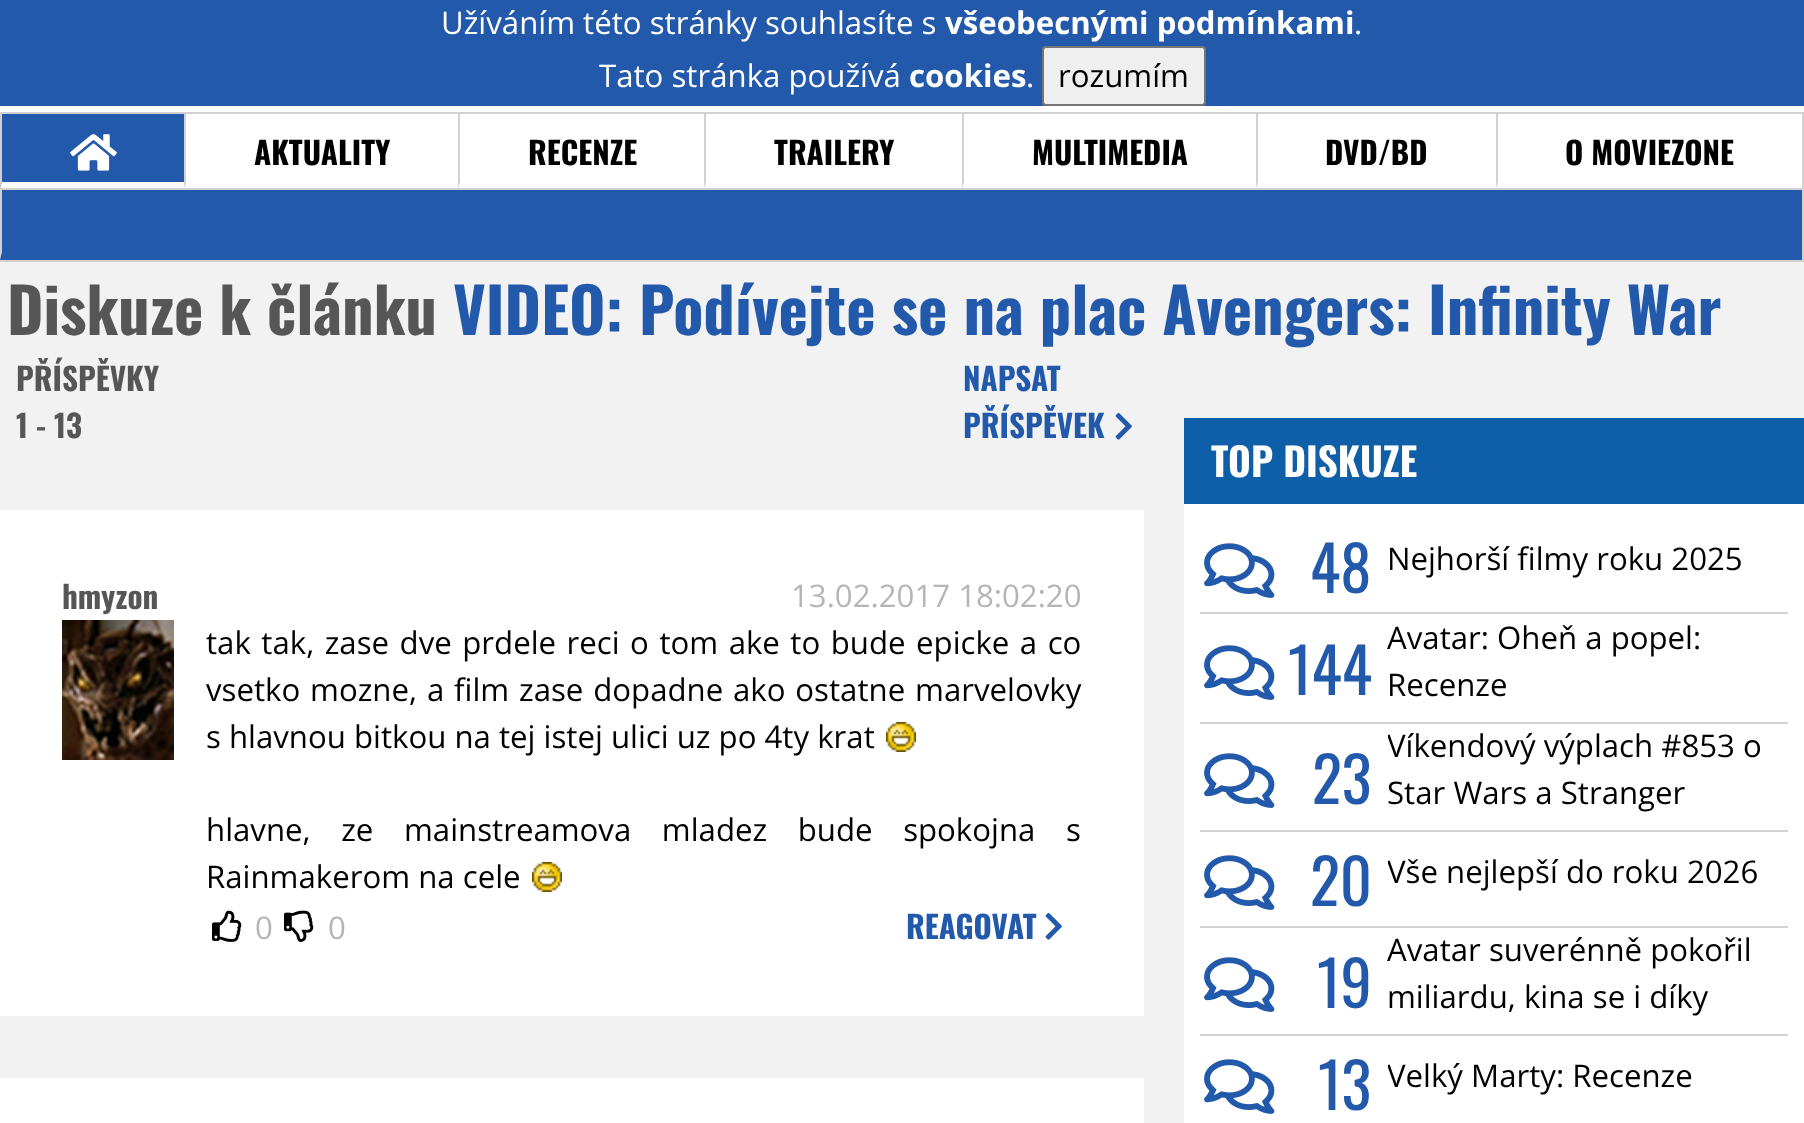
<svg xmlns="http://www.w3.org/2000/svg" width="1804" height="1123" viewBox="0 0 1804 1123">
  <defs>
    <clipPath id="clip1"><path d="M1388 724h400v92H1388z"/></clipPath>
    <clipPath id="clip2"><path d="M1388 848h400v48H1388z"/></clipPath>
    <clipPath id="clip3"><path d="M1388 1052h400v48H1388z"/></clipPath>
  </defs>
  <rect width="100%" height="100%" fill="#f2f2f2"/>
  <path d="M0 0h1804v106H0z" fill="#2359ab"/>
  <rect x="1043" y="47" width="162" height="58" rx="3" fill="#efefef" stroke="#767676" stroke-width="2"/>
  <path d="M0 106h1804v82H0z" fill="#fff"/>
  <path d="M0 112h1804v2H0z" fill="#d1d1d1"/>
  <path d="M1802 112h2v150H1802z" fill="#d1d1d1"/>
  <path d="M0 188h1804v2H0z" fill="#d1d1d1"/>
  <path d="M0 114h184v74H0z" fill="#2359ab"/>
  <path d="M184 188H0L2 182H184Z" fill="#fff"/>
  <path d="M0 188V114H2V182Z" fill="#d1d1d1"/>
  <image x="70" y="134" width="47" height="37" href="img/1.png"/>
  <path d="M184 188V114H186V182Z" fill="#d1d1d1"/>
  <path d="M458 188V114H460V182Z" fill="#d1d1d1"/>
  <path d="M704 188V114H706V182Z" fill="#d1d1d1"/>
  <path d="M962 188V114H964V182Z" fill="#d1d1d1"/>
  <path d="M1256 188V114H1258V182Z" fill="#d1d1d1"/>
  <path d="M1496 188V114H1498V182Z" fill="#d1d1d1"/>
  <path d="M0 190h1802v70H0z" fill="#2359ab"/>
  <path d="M0 260h1804v2H0z" fill="#d1d1d1"/>
  <path d="M0 260V190H2V252Z" fill="#d1d1d1"/>
  <image x="1115" y="413" width="17" height="27" href="img/2.png"/>
  <path d="M0 510h1144v506H0z" fill="#fff"/>
  <image x="62" y="620" width="112" height="140" href="img/3.png"/>
  <image x="886" y="722" width="30" height="30" href="img/4.png"/>
  <image x="532" y="862" width="30" height="30" href="img/4.png"/>
  <image x="212" y="910" width="30" height="32" href="img/5.png"/>
  <image x="284" y="910" width="30" height="32" href="img/6.png"/>
  <image x="1045" y="913" width="17" height="27" href="img/7.png"/>
  <path d="M0 1078h1144v45H0z" fill="#fff"/>
  <path d="M1184 504h620v619H1184z" fill="#fff"/>
  <path d="M1184 418h620v86H1184z" fill="#0f5ea8"/>
  <path d="M1200 612h588v2H1200z" fill="#d1d1d1"/>
  <image x="1204" y="543" width="71" height="55" href="img/8.png"/>
  <path d="M1200 722h588v2H1200z" fill="#d1d1d1"/>
  <image x="1204" y="645" width="71" height="55" href="img/8.png"/>
  <path d="M1200 830h588v2H1200z" fill="#d1d1d1"/>
  <image x="1204" y="753" width="71" height="55" href="img/8.png"/>
  <path d="M1200 926h588v2H1200z" fill="#d1d1d1"/>
  <image x="1204" y="855" width="71" height="55" href="img/8.png"/>
  <path d="M1200 1034h588v2H1200z" fill="#d1d1d1"/>
  <image x="1204" y="957" width="71" height="55" href="img/8.png"/>
  <image x="1204" y="1059" width="71" height="55" href="img/8.png"/>
  <text x="441" y="34" font-family="Open Sans" font-size="31.2" fill="#fff">Užíváním této stránky souhlasíte s</text>
  <text x="945" y="34" font-family="Open Sans" font-size="31.2" font-weight="bold" fill="#fff">všeobecnými podmínkami</text>
  <g font-family="Open Sans" font-size="31.2" fill="#fff">
    <text x="1354" y="34">.</text>
    <text x="599" y="87">Tato stránka používá</text>
  </g>
  <text x="909" y="87" font-family="Open Sans" font-size="31.2" font-weight="bold" fill="#fff">cookies</text>
  <text x="1026" y="87" font-family="Open Sans" font-size="31.2" fill="#fff">.</text>
  <text x="1058" y="87" font-family="Open Sans" font-size="31.2" fill="#000">rozumím</text>
  <g font-family="Oswald" font-size="31.2" font-weight="bold" fill="#000">
    <text x="254" y="165">AKTUALITY</text>
    <text x="528" y="165">RECENZE</text>
    <text x="774" y="165">TRAILERY</text>
    <text x="1032" y="165">MULTIMEDIA</text>
    <text x="1325" y="165">DVD/BD</text>
    <text x="1565" y="165">O MOVIEZONE</text>
  </g>
  <text x="7" y="335" font-family="Oswald" font-size="62.4" font-weight="bold" fill="#565656">Diskuze k článku</text>
  <text x="453" y="335" font-family="Oswald" font-size="62.4" font-weight="bold" fill="#2359ab">VIDEO: Podívejte se na plac Avengers: Infinity War</text>
  <g font-family="Oswald" font-size="31.2" font-weight="bold" fill="#565656">
    <text x="16" y="391">PŘÍSPĚVKY</text>
    <text x="16" y="438">1 - 13</text>
  </g>
  <g font-family="Oswald" font-size="31.2" font-weight="bold" fill="#2359ab">
    <text x="963" y="391">NAPSAT</text>
    <text x="963" y="438">PŘÍSPĚVEK</text>
  </g>
  <text x="62" y="609" font-family="Oswald" font-size="31.2" font-weight="bold" fill="#565656">hmyzon</text>
  <text x="791" y="607" font-family="Open Sans" font-size="31.2" fill="#b5b5b5">13.02.2017 18:02:20</text>
  <g font-family="Open Sans" font-size="31.2" fill="#000">
    <text x="206" y="654" word-spacing="2.4">tak tak, zase dve prdele reci o tom ake to bude epicke a co</text>
    <text x="206" y="701" word-spacing="1.75">vsetko mozne, a film zase dopadne ako ostatne marvelovky</text>
    <text x="206" y="748">s hlavnou bitkou na tej istej ulici uz po 4ty krat</text>
    <text x="206" y="841" word-spacing="22.5">hlavne, ze mainstreamova mladez bude spokojna s</text>
    <text x="206" y="888">Rainmakerom na cele</text>
  </g>
  <g font-family="Open Sans" font-size="31.2" fill="#b5b5b5">
    <text x="255" y="939">0</text>
    <text x="328" y="939">0</text>
  </g>
  <text x="906" y="939" font-family="Oswald" font-size="31.2" font-weight="bold" fill="#2359ab">REAGOVAT</text>
  <text x="1211" y="477" font-family="Oswald" font-size="39" font-weight="bold" fill="#fff">TOP DISKUZE</text>
  <text x="1310" y="593" font-family="Oswald" font-size="62.4" fill="#2359ab">48</text>
  <text x="1387" y="570" font-family="Open Sans" font-size="31.2" fill="#000">Nejhorší filmy roku 2025</text>
  <text x="1288" y="695" font-family="Oswald" font-size="62.4" fill="#2359ab">144</text>
  <g font-family="Open Sans" font-size="31.2" fill="#000">
    <text x="1387" y="649">Avatar: Oheň a popel:</text>
    <text x="1387" y="696">Recenze</text>
  </g>
  <text x="1312" y="804" font-family="Oswald" font-size="62.4" fill="#2359ab">23</text>
  <g clip-path="url(#clip1)">
    <text x="1387" y="757" font-family="Open Sans" font-size="31.2" fill="#000">Víkendový výplach #853 o</text>
  </g>
  <text x="1387" y="804" font-family="Open Sans" font-size="31.2" fill="#000">Star Wars a Stranger</text>
  <text x="1310" y="906" font-family="Oswald" font-size="62.4" fill="#2359ab">20</text>
  <g clip-path="url(#clip2)">
    <text x="1387" y="883" font-family="Open Sans" font-size="31.2" fill="#000">Vše nejlepší do roku 2026</text>
  </g>
  <text x="1317" y="1008" font-family="Oswald" font-size="62.4" fill="#2359ab">19</text>
  <g font-family="Open Sans" font-size="31.2" fill="#000">
    <text x="1387" y="961">Avatar suverénně pokořil</text>
    <text x="1387" y="1008">miliardu, kina se i díky</text>
  </g>
  <text x="1318" y="1110" font-family="Oswald" font-size="62.4" fill="#2359ab">13</text>
  <g clip-path="url(#clip3)">
    <text x="1387" y="1087" font-family="Open Sans" font-size="31.2" fill="#000">Velký Marty: Recenze</text>
  </g>
</svg>
